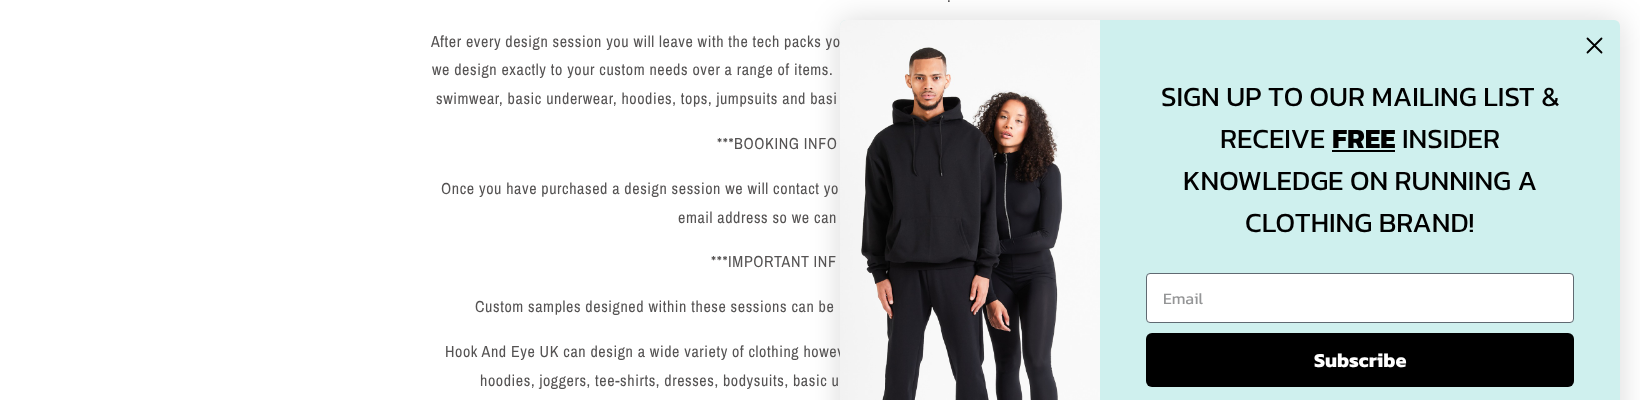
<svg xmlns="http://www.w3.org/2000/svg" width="1640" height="400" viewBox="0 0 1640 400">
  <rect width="100%" height="100%" fill="#fff"/>
  <rect x="840" y="20" width="780" height="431" rx="6" fill="#00000026" filter="blur(15px)"/>
  <g font-family="Archivo Narrow" font-size="16" letter-spacing="0.6" fill="#555353">
    <text x="947" y="2">.</text>
    <text x="431" y="47">After every design session you will leave with the tech packs yo</text>
    <text x="432" y="75">we design exactly to your custom needs over a range of items.</text>
    <text x="436" y="104">swimwear, basic underwear, hoodies, tops, jumpsuits and basi</text>
    <text x="717" y="149">***BOOKING INFO</text>
    <text x="441" y="194">Once you have purchased a design session we will contact yo</text>
    <text x="678" y="223">email address so we can</text>
    <text x="711" y="267">***IMPORTANT INF</text>
    <text x="475" y="312">Custom samples designed within these sessions can be</text>
    <text x="445" y="357">Hook And Eye UK can design a wide variety of clothing howev</text>
    <text x="480" y="386">hoodies, joggers, tee-shirts, dresses, bodysuits, basic u</text>
  </g>
  <rect x="840" y="20" width="780" height="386" rx="6" fill="#cff0ee"/>
  <path d="M1587.5 38.5L1601.5 52.5M1587.5 52.5L1601.5 38.5Z" fill="none" stroke="#000" stroke-width="1.8" stroke-linecap="round" stroke-linejoin="round"/>
  <image x="840" y="20" width="260" height="380" href="img/1.png"/>
  <g font-family="Kanit" font-size="28" fill="#000">
    <text x="1161" y="106">SIGN UP TO OUR MAILING LIST &amp;</text>
    <text x="1220" y="148">RECEIVE</text>
  </g>
  <text x="1332" y="148" font-family="Kanit" font-size="28" font-weight="bold" fill="#000">FREE</text>
  <path d="M1332 150h63v2H1332z" fill="#000"/>
  <g font-family="Kanit" font-size="28" fill="#000">
    <text x="1402" y="148">INSIDER</text>
    <text x="1183" y="190">KNOWLEDGE ON RUNNING A</text>
    <text x="1245" y="232">CLOTHING BRAND!</text>
  </g>
  <rect x="1146.5" y="273.5" width="427" height="49" rx="3.5" fill="#fff" stroke="#606a72"/>
  <text x="1163" y="304" font-family="Kanit" font-size="16" fill="#949596">Email</text>
  <rect x="1146" y="333" width="428" height="54" rx="6" fill="#000"/>
  <text x="1314" y="367" font-family="Kanit" font-size="20" font-weight="bold" fill="#fff">Subscribe</text>
</svg>
